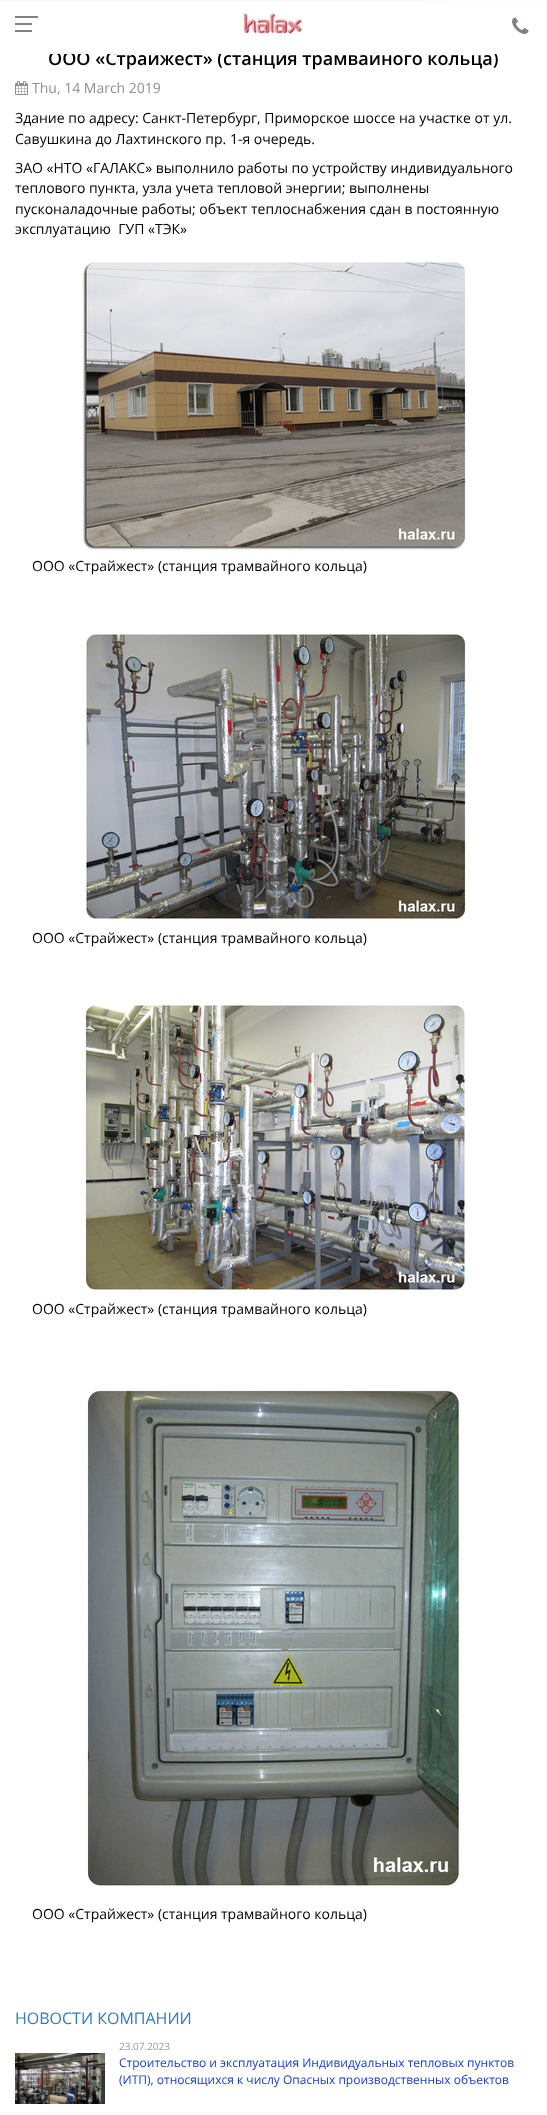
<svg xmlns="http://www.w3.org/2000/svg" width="547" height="2115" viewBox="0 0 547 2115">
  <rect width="100%" height="100%" fill="#fff"/>
  <image x="0" y="0" width="547" height="1" href="img/1.png"/>
  <image x="15" y="81" width="13" height="14" href="img/4.png"/>
  <image x="82" y="260" width="384" height="290" href="img/5.png"/>
  <image x="84" y="632" width="382" height="289" href="img/6.png"/>
  <image x="83" y="1003" width="382" height="289" href="img/7.png"/>
  <image x="87" y="1388" width="374" height="500" href="img/8.png"/>
  <image x="15" y="2053" width="90" height="51" href="img/9.png"/>
  <text x="48" y="65" font-family="Open Sans" font-size="18" font-weight="600" fill="#010101">OOO «Страйжест» (станция трамвайного кольца)</text>
  <path d="M0 0h547v54H0z" fill="#fffffff2"/>
  <image x="512" y="17" width="17" height="17" href="img/3.png"/>
  <path d="M15 30h17v2H15z" fill="#848080"/>
  <path d="M15 16h23v2H15z" fill="#848080"/>
  <path d="M15 23h17v2H15z" fill="#848080"/>
  <image x="243" y="13" width="59" height="21" href="img/2.png"/>
  <text x="32" y="93" font-family="Open Sans" font-size="14" fill="#909090">Thu, 14 March 2019</text>
  <g font-family="Open Sans" font-size="14" fill="#010101">
    <text x="15" y="123">Здание по адресу: Санкт-Петербург, Приморское шоссе на участке от ул.</text>
    <text x="15" y="144">Савушкина до Лахтинского пр. 1-я очередь.</text>
    <text x="15" y="173">ЗАО «НТО «ГАЛАКС» выполнило работы по устройству индивидуального</text>
    <text x="15" y="193">теплового пункта, узла учета тепловой энергии; выполнены</text>
    <text x="15" y="214">пусконаладочные работы; объект теплоснабжения сдан в постоянную</text>
    <text x="15" y="234" xml:space="preserve">эксплуатацию  ГУП «ТЭК»</text>
    <text x="32" y="571">OOO «Страйжест» (станция трамвайного кольца)</text>
    <text x="32" y="943">OOO «Страйжест» (станция трамвайного кольца)</text>
    <text x="32" y="1314">OOO «Страйжест» (станция трамвайного кольца)</text>
    <text x="32" y="1919">OOO «Страйжест» (станция трамвайного кольца)</text>
  </g>
  <text x="15" y="2024" font-family="Open Sans" font-size="16" fill="#337ab7">НОВОСТИ КОМПАНИИ</text>
  <text x="119" y="2050" font-family="Open Sans" font-size="10" fill="#999">23.07.2023</text>
  <g font-family="Open Sans" font-size="12" fill="#1a3dc1">
    <text x="119" y="2067">Строительство и эксплуатация Индивидуальных тепловых пунктов</text>
    <text x="119" y="2084">(ИТП), относящихся к числу Опасных производственных объектов</text>
  </g>
</svg>
